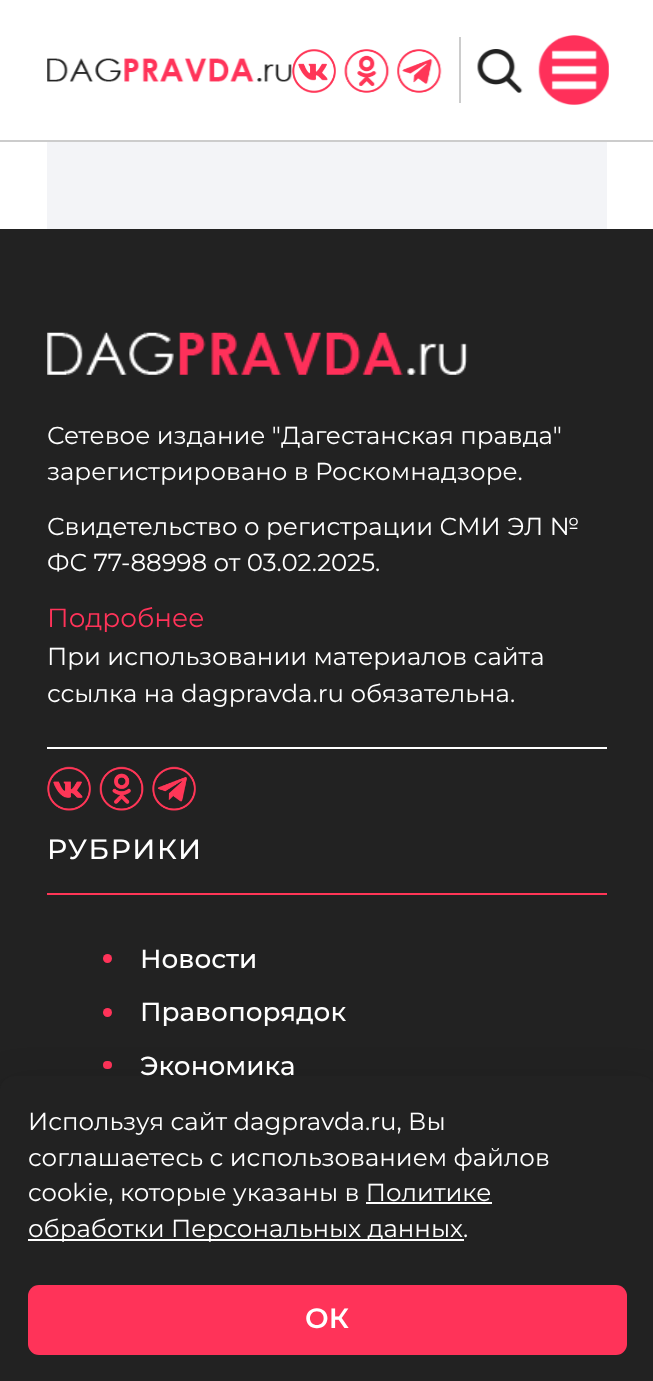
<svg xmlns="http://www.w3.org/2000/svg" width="653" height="1381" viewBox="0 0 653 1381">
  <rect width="100%" height="100%" fill="#fff"/>
  <path d="M0 140h653v2H0z" fill="#ccc"/>
  <image x="47" y="58" width="245" height="24" href="img/1.png"/>
  <path d="M459 37h2v66H459z" fill="#ccc"/>
  <image x="292" y="49" width="44" height="44" href="img/2.png"/>
  <image x="344" y="49" width="46" height="44" href="img/3.png"/>
  <image x="397" y="49" width="45" height="44" href="img/4.png"/>
  <image x="477" y="49" width="46" height="44" href="img/5.png"/>
  <image x="538" y="35" width="71" height="70" href="img/6.png"/>
  <path d="M47 142h560v87H47z" fill="#f3f4f7"/>
  <path d="M0 229h653v861H0z" fill="#222"/>
  <image x="47" y="332" width="421" height="43" href="img/7.png"/>
  <path d="M47 747h560v2H47z" fill="#fff"/>
  <image x="47" y="766" width="44" height="45" href="img/8.png"/>
  <image x="99" y="766" width="45" height="45" href="img/9.png"/>
  <image x="152" y="766" width="44" height="45" href="img/10.png"/>
  <path d="M47 893h560v2H47z" fill="#ff3657"/>
  <circle cx="107.5" cy="958.5" r="4.5" fill="#ff3359"/>
  <circle cx="107.5" cy="1012.5" r="4.5" fill="#ff3359"/>
  <rect x="103" y="1061" width="9" height="8" rx="4" fill="#ff3359"/>
  <rect y="1090" width="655" height="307" rx="14" fill="#00000033" filter="blur(21px)"/>
  <path d="M14 1076H641C648.5 1076 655 1082.5 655 1090V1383H0V1090C0 1082.5 6.5 1076 14 1076Z" fill="#222"/>
  <path d="M366 1202h126v2H366z" fill="#fff"/>
  <path d="M28 1239h436v2H28z" fill="#fff"/>
  <rect x="28" y="1285" width="599" height="70" rx="11" fill="#ff3359"/>
  <g font-family="Montserrat" font-size="24.5" fill="#fff">
    <text x="47" y="444">Сетевое издание "Дагестанская правда"</text>
    <text x="47" y="480">зарегистрировано в Роскомнадзоре.</text>
    <text x="47" y="535">Свидетельство о регистрации СМИ ЭЛ №</text>
    <text x="47" y="571">ФС 77-88998 от 03.02.2025.</text>
  </g>
  <text x="47" y="627" font-family="Montserrat" font-size="26.25" fill="#ff3359">Подробнее</text>
  <g font-family="Montserrat" font-size="24.5" fill="#fff">
    <text x="47" y="665">При использовании материалов сайта</text>
    <text x="47" y="702">ссылка на dagpravda.ru обязательна.</text>
  </g>
  <text x="47" y="859" font-family="Montserrat" font-size="28" font-weight="500" letter-spacing="1.75" fill="#fff">РУБРИКИ</text>
  <g font-family="Montserrat" font-size="26.25" font-weight="500" fill="#fff">
    <text x="140" y="968">Новости</text>
    <text x="140" y="1021">Правопорядок</text>
    <text x="140" y="1075">Экономика</text>
  </g>
  <g font-family="Montserrat" font-size="24.5" fill="#fff">
    <text x="28" y="1130">Используя сайт dagpravda.ru, Вы</text>
    <text x="28" y="1166">соглашаетесь с использованием файлов</text>
    <text x="28" y="1201">cookie, которые указаны в Политике</text>
    <text x="28" y="1237">обработки Персональных данных.</text>
  </g>
  <text x="305" y="1328" font-family="Montserrat" font-size="28" font-weight="600" fill="#fff">ОК</text>
</svg>
